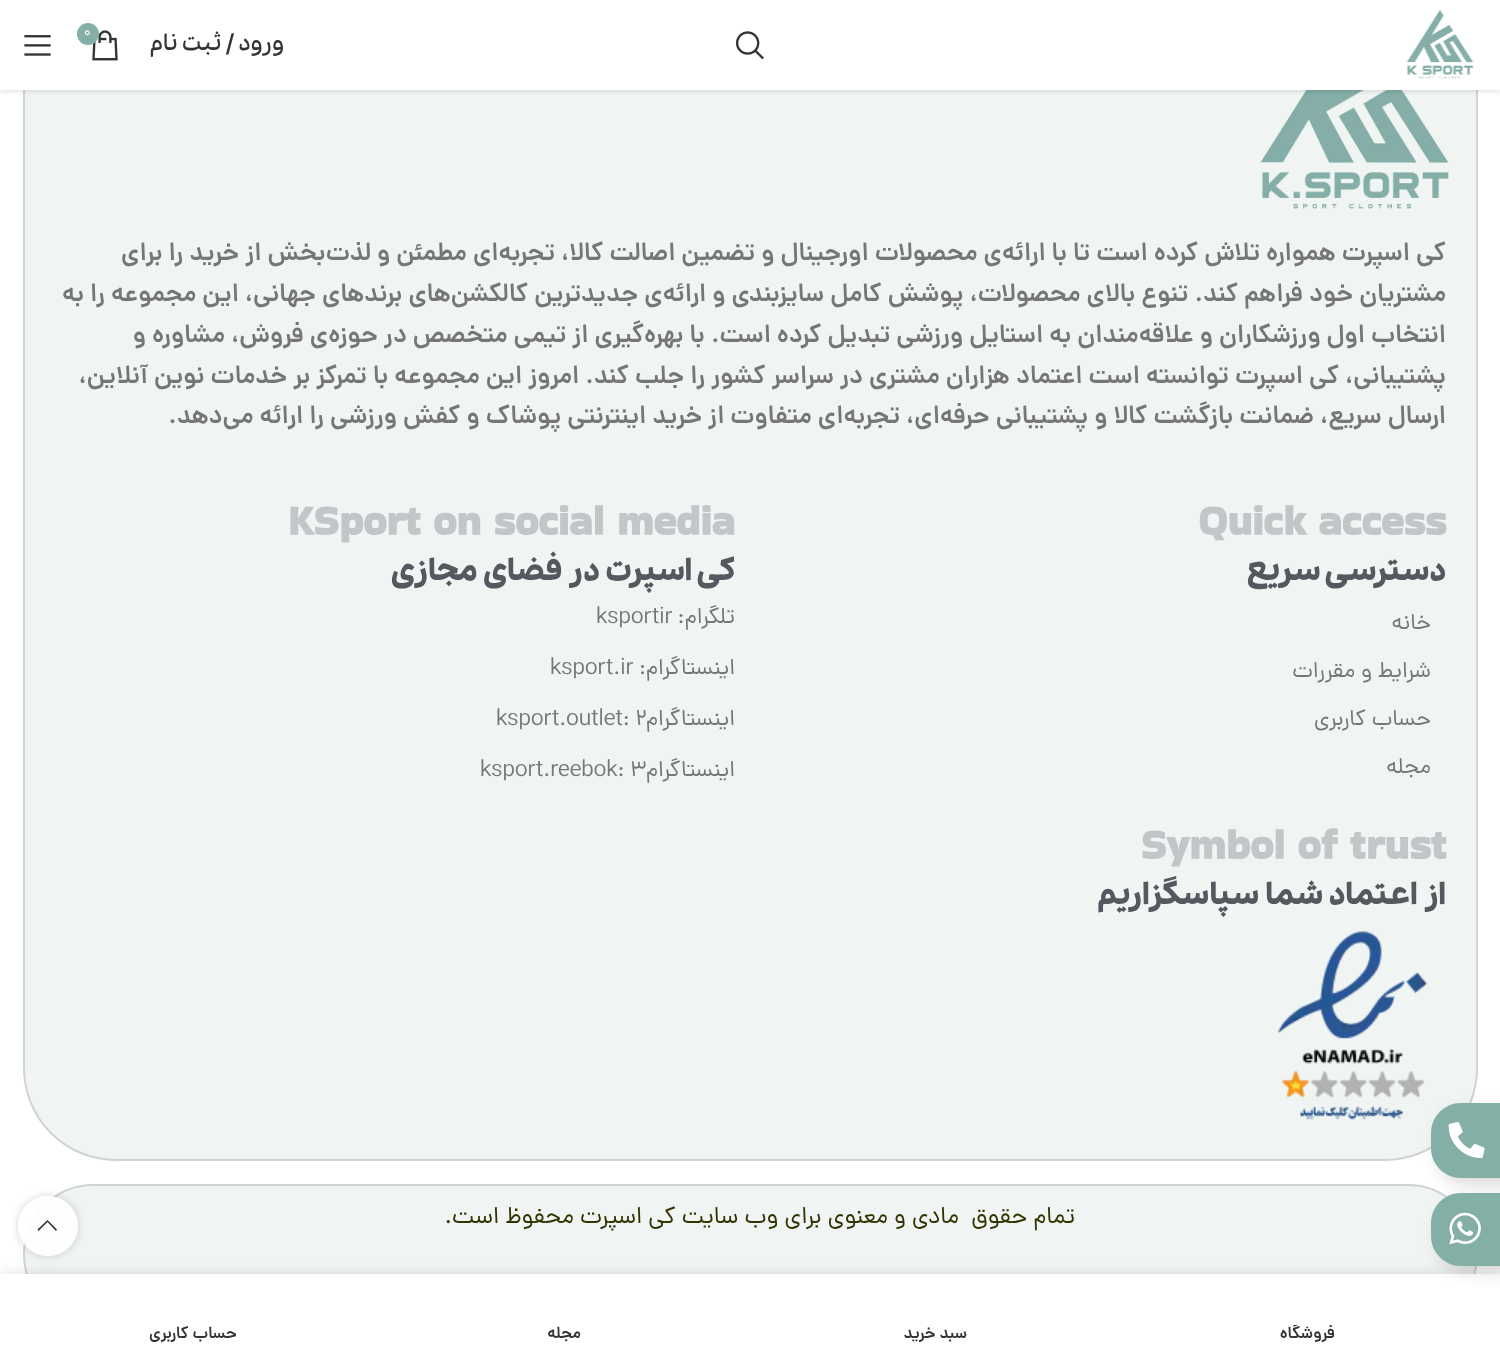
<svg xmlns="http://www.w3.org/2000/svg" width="1500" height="1356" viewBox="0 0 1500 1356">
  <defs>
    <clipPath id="clip1"><path d="M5 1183H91V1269H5ZM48 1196C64.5 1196 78 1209.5 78 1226C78 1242.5 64.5 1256 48 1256C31.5 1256 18 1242.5 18 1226C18 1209.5 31.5 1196 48 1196Z" clip-rule="evenodd"/></clipPath>
    <clipPath id="clip2"><path d="M1137 1325h341v19H1137z"/></clipPath>
  </defs>
  <rect width="100%" height="100%" fill="#fff"/>
  <rect x="24" y="-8" width="1453" height="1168" rx="92" fill="none" stroke="#dadada" stroke-width="2"/>
  <rect x="23" y="-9" width="1455" height="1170" rx="93" fill="#84afa61f"/>
  <image x="1277" y="931" width="150" height="189" href="img/8.png"/>
  <rect x="24" y="1185" width="1453" height="139" rx="69.5" fill="none" stroke="#dadada" stroke-width="2"/>
  <rect x="23" y="1184" width="1455" height="141" rx="70.5" fill="#84afa61f"/>
  <rect x="1437" y="1109" width="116" height="75" rx="30" fill="#00000026" filter="blur(7.5px)"/>
  <path d="M1461 1103H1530V1178H1461C1444.5 1178 1431 1164.5 1431 1148V1133C1431 1116.5 1444.5 1103 1461 1103Z" fill="#84afa6"/>
  <image x="1448" y="1122" width="37" height="36" href="img/1.png"/>
  <g clip-path="url(#clip1)">
    <rect x="18" y="1196" width="60" height="60" rx="30" fill="#0000002b" filter="blur(4px)"/>
  </g>
  <circle cx="48" cy="1226" r="30" fill="#ffffffe6"/>
  <path d="M0 1274h1500v82H0z" fill="#0000001f" filter="blur(7px)"/>
  <path d="M0 1274h1500v82H0z" fill="#fff"/>
  <rect x="1437" y="1199" width="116" height="73" rx="30" fill="#00000026" filter="blur(7.5px)"/>
  <path d="M1461 1193H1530V1266H1461C1444.5 1266 1431 1252.5 1431 1236V1223C1431 1206.5 1444.5 1193 1461 1193Z" fill="#84afa6"/>
  <image x="1449" y="1212" width="32" height="33" href="img/2.png"/>
  <image x="1260" y="90" width="189" height="119" href="img/7.png"/>
  <path d="M0 2h1500v90H0z" fill="#0000001a" filter="blur(2px)"/>
  <path d="M0 0h1500v90H0z" fill="#fff"/>
  <image x="1406" y="10" width="68" height="69" href="img/3.png"/>
  <image x="736" y="31" width="28" height="29" href="img/4.png"/>
  <image x="92" y="30" width="26" height="31" href="img/5.png"/>
  <circle cx="88" cy="34" r="11" fill="#84afa6"/>
  <image x="24" y="35" width="27" height="21" href="img/6.png"/>
  <path d="M56 1231L57 1229.5L47.5 1220L37.5 1229.5L38.5 1231L47.5 1222Z" fill="#333"/>
  <text x="284" y="50" font-family="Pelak" font-size="22.5" font-weight="600" direction="rtl" fill="#333">ورود / ثبت نام</text>
  <text x="84" y="36" font-family="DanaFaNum" font-size="14" fill="#fff">0</text>
  <g font-family="DanaFaNum" font-size="25.5" font-weight="600" direction="rtl" fill="#767676">
    <text x="1446" y="260">کی اسپرت همواره تلاش کرده است تا با ارائه‌ی محصولات اورجینال و تضمین اصالت کالا، تجربه‌ای مطمئن و لذت‌بخش از خرید را برای</text>
    <text x="1446" y="301">مشتریان خود فراهم کند. تنوع بالای محصولات، پوشش کامل سایزبندی و ارائه‌ی جدیدترین کالکشن‌های برندهای جهانی، این مجموعه را به</text>
    <text x="1446" y="342">انتخاب اول ورزشکاران و علاقه‌مندان به استایل ورزشی تبدیل کرده است. با بهره‌گیری از تیمی متخصص در حوزه‌ی فروش، مشاوره و</text>
    <text x="1446" y="383">پشتیبانی، کی اسپرت توانسته است اعتماد هزاران مشتری در سراسر کشور را جلب کند. امروز این مجموعه با تمرکز بر خدمات نوین آنلاین،</text>
    <text x="1446" y="423">ارسال سریع، ضمانت بازگشت کالا و پشتیبانی حرفه‌ای، تجربه‌ای متفاوت از خرید اینترنتی پوشاک و کفش ورزشی را ارائه می‌دهد.</text>
  </g>
  <text x="1198" y="535" font-family="Bakbak One" font-size="42" font-weight="bold" fill="#c1c6c8">Quick access</text>
  <text x="1446" y="580" font-family="Pelak" font-size="30" font-weight="900" direction="rtl" fill="#54595f">دسترسی سریع</text>
  <g font-family="DanaFaNum" font-size="22.5" direction="rtl" fill="#767676">
    <text x="1431" y="629">خانه</text>
    <text x="1431" y="677">شرایط و مقررات</text>
    <text x="1431" y="725">حساب کاربری</text>
    <text x="1431" y="773">مجله</text>
  </g>
  <text x="288" y="535" font-family="Bakbak One" font-size="42" font-weight="bold" fill="#c1c6c8">KSport on social media</text>
  <text x="735" y="580" font-family="Pelak" font-size="30" font-weight="900" direction="rtl" fill="#54595f">کی اسپرت در فضای مجازی</text>
  <text x="735" y="623" font-family="DanaFaNum" font-size="22.5" direction="rtl" fill="#767676">تلگرام:</text>
  <text x="596" y="623" font-family="DanaFaNum" font-size="22.5" fill="#767676">ksportir</text>
  <text x="735" y="674" font-family="DanaFaNum" font-size="22.5" direction="rtl" fill="#767676">اینستاگرام:</text>
  <text x="550" y="674" font-family="DanaFaNum" font-size="22.5" fill="#767676">ksport.ir</text>
  <text x="735" y="725" font-family="DanaFaNum" font-size="22.5" direction="rtl" fill="#767676">اینستاگرام</text>
  <text x="496" y="725" font-family="DanaFaNum" font-size="22.5" fill="#767676">ksport.outlet: 2</text>
  <text x="735" y="776" font-family="DanaFaNum" font-size="22.5" direction="rtl" fill="#767676">اینستاگرام</text>
  <text x="480" y="776" font-family="DanaFaNum" font-size="22.5" fill="#767676">ksport.reebok: 3</text>
  <text x="1141" y="859" font-family="Bakbak One" font-size="42" font-weight="bold" fill="#c1c6c8">Symbol of trust</text>
  <text x="1446" y="904" font-family="Pelak" font-size="30" font-weight="900" direction="rtl" fill="#54595f">از اعتماد شما سپاسگزاریم</text>
  <text x="1075" y="1223" font-family="DanaFaNum" font-size="24" direction="rtl" fill="#330" xml:space="preserve">تمام حقوق  مادی و معنوی برای وب سایت کی اسپرت محفوظ است.</text>
  <g clip-path="url(#clip2)">
    <text x="1335" y="1338" font-family="DanaFaNum" font-size="16.5" font-weight="600" direction="rtl" fill="#333">فروشگاه</text>
  </g>
  <g font-family="DanaFaNum" font-size="16.5" font-weight="600" direction="rtl" fill="#333">
    <text x="967" y="1338">سبد خرید</text>
    <text x="581" y="1338">مجله</text>
    <text x="237" y="1338">حساب کاربری</text>
  </g>
</svg>
